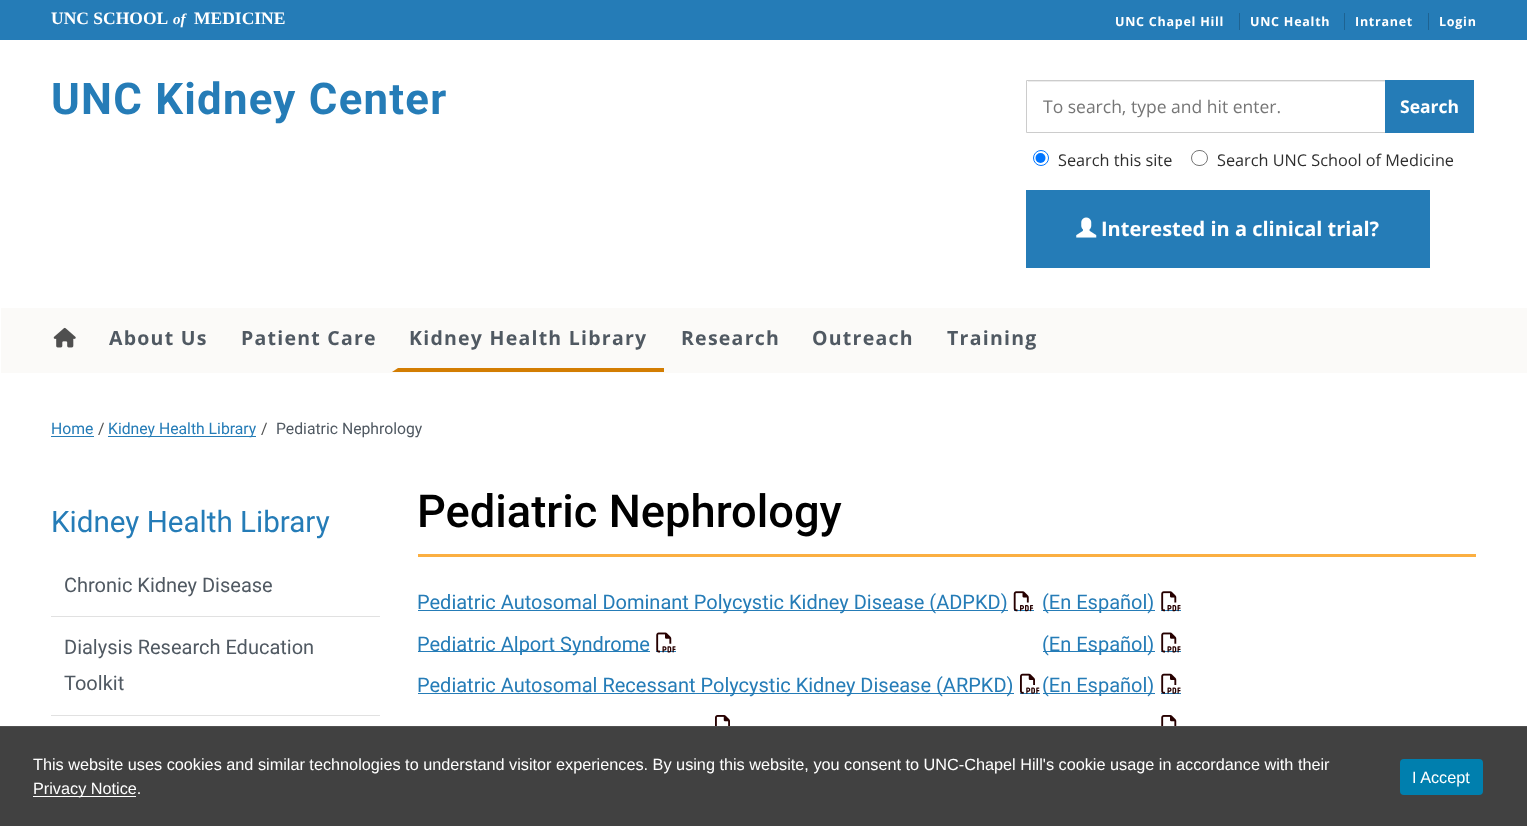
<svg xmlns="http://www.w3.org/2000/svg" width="1527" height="826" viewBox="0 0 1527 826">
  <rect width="100%" height="100%" fill="#fff"/>
  <path d="M0 0h1527v40H0z" fill="#257cb7"/>
  <path d="M1239 13h1v17H1239z" fill="#1e6392"/>
  <path d="M1344 13h1v17H1344z" fill="#1e6392"/>
  <path d="M1428 13h1v17H1428z" fill="#1e6392"/>
  <path d="M1028 81h357v1H1028z" fill="#ececec"/>
  <path d="M1026.5 80.5h359v52H1026.5z" fill="none" stroke="#ccc"/>
  <path d="M1385 80h89v53H1385z" fill="#257cb7"/>
  <circle cx="1041" cy="158" r="7.5" fill="none" stroke="#0075ff"/>
  <circle cx="1040.5" cy="158" r="5" fill="#0075ff"/>
  <rect x="1191.5" y="150.5" width="16" height="15" rx="7.5" fill="none" stroke="#767676"/>
  <path d="M1026 190h404v78H1026z" fill="#257cb7"/>
  <image x="1076" y="217" width="21" height="21" href="img/1.png"/>
  <path d="M1 308h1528v65H1z" fill="#bdbdbdbf" filter="blur(0.5px)"/>
  <path d="M1 308h1526v65H1z" fill="#fbfaf8"/>
  <image x="53" y="327" width="23" height="21" href="img/2.png"/>
  <path d="M664 372H392L398 368H664Z" fill="#d37d02"/>
  <path d="M51 436h43v1H51z" fill="#257cb7"/>
  <path d="M108 436h148v1H108z" fill="#257cb7"/>
  <path d="M51 616h329v1H51z" fill="#e1e1e1"/>
  <path d="M51 715h329v1H51z" fill="#e1e1e1"/>
  <path d="M418 554h1058v3H418z" fill="#fbaf41"/>
  <path d="M418 610h590v1H418z" fill="#257cb7"/>
  <path d="M1014 610h20v1H1014z" fill="#257cb7"/>
  <image x="1013" y="591" width="21" height="21" href="img/3.png"/>
  <path d="M1043 610h112v1H1043z" fill="#257cb7"/>
  <path d="M1161 610h20v1H1161z" fill="#257cb7"/>
  <image x="1161" y="591" width="20" height="21" href="img/4.png"/>
  <path d="M418 651h232v1H418z" fill="#257cb7"/>
  <path d="M656 651h20v1H656z" fill="#257cb7"/>
  <image x="656" y="632" width="20" height="21" href="img/5.png"/>
  <path d="M1043 651h112v1H1043z" fill="#257cb7"/>
  <path d="M1161 651h20v1H1161z" fill="#257cb7"/>
  <image x="1161" y="632" width="20" height="21" href="img/5.png"/>
  <path d="M418 693h596v1H418z" fill="#257cb7"/>
  <path d="M1020 693h20v1H1020z" fill="#257cb7"/>
  <image x="1020" y="673" width="20" height="21" href="img/6.png"/>
  <path d="M1043 693h112v1H1043z" fill="#257cb7"/>
  <path d="M1161 693h20v1H1161z" fill="#257cb7"/>
  <image x="1161" y="673" width="20" height="21" href="img/7.png"/>
  <image x="715" y="715" width="15" height="11" href="img/8.png"/>
  <image x="1161" y="715" width="16" height="11" href="img/9.png"/>
  <path d="M0 727h1527v99H0z" fill="#414141"/>
  <path d="M0 726h1527v1H0z" fill="#515151"/>
  <path d="M33 796h103v1H33z" fill="#fff"/>
  <rect x="1400" y="759" width="83" height="36" rx="4" fill="#007fae"/>
  <text x="51" y="24" font-family="Liberation Serif" font-size="17.5" font-weight="bold" fill="#fff">UNC SCHOOL</text>
  <text x="173" y="24" font-family="Liberation Serif" font-size="15" font-weight="bold" font-style="italic" fill="#fff">of</text>
  <text x="194" y="24" font-family="Liberation Serif" font-size="17.5" font-weight="bold" fill="#fff">MEDICINE</text>
  <g font-family="Open Sans" font-size="12.5" font-weight="bold" letter-spacing="0.75" fill="#fff">
    <text x="1115" y="26">UNC Chapel Hill</text>
    <text x="1250" y="26">UNC Health</text>
    <text x="1355" y="26">Intranet</text>
    <text x="1439" y="26">Login</text>
  </g>
  <text x="51" y="114" font-family="Roboto" font-size="43.75" font-weight="bold" letter-spacing="1.25" fill="#257cb7">UNC Kidney Center</text>
  <text x="1043" y="113" font-family="Open Sans" font-size="17.5" fill="#767676">To search, type and hit enter.</text>
  <text x="1400" y="113" font-family="Open Sans" font-size="17.5" font-weight="bold" fill="#fff">Search</text>
  <g font-family="Open Sans" font-size="16.25" fill="#2e2e2e">
    <text x="1058" y="166">Search this site</text>
    <text x="1217" y="166">Search UNC School of Medicine</text>
  </g>
  <text x="1101" y="236" font-family="Open Sans" font-size="20" font-weight="bold" fill="#fff">Interested in a clinical trial?</text>
  <g font-family="Open Sans" font-size="19.5" font-weight="bold" letter-spacing="1.25" fill="#505962">
    <text x="109" y="345">About Us</text>
    <text x="241" y="345">Patient Care</text>
    <text x="409" y="345">Kidney Health Library</text>
    <text x="681" y="345">Research</text>
    <text x="812" y="345">Outreach</text>
    <text x="947" y="345">Training</text>
  </g>
  <text x="51" y="434" font-family="Roboto" font-size="15.75" fill="#257cb7">Home</text>
  <text x="98" y="434" font-family="Roboto" font-size="15.75" fill="#4f4f4f">/</text>
  <text x="108" y="434" font-family="Roboto" font-size="15.75" fill="#257cb7">Kidney Health Library</text>
  <text x="261" y="434" font-family="Roboto" font-size="15.75" fill="#4f4f4f">/</text>
  <text x="276" y="434" font-family="Roboto" font-size="15.75" fill="#505962">Pediatric Nephrology</text>
  <text x="51" y="532" font-family="Roboto" font-size="29.6" fill="#257cb7">Kidney Health Library</text>
  <g font-family="Roboto" font-size="20" fill="#505962">
    <text x="64" y="592">Chronic Kidney Disease</text>
    <text x="64" y="654">Dialysis Research Education</text>
    <text x="64" y="690">Toolkit</text>
  </g>
  <text x="417" y="527" font-family="Roboto" font-size="45.25" font-weight="500" fill="#000">Pediatric Nephrology</text>
  <g font-family="Roboto" font-size="20" fill="#257cb7">
    <text x="417" y="609">Pediatric Autosomal Dominant Polycystic Kidney Disease (ADPKD)</text>
    <text x="1042" y="609">(En Español)</text>
    <text x="417" y="651">Pediatric Alport Syndrome</text>
    <text x="1042" y="651">(En Español)</text>
    <text x="417" y="692">Pediatric Autosomal Recessant Polycystic Kidney Disease (ARPKD)</text>
    <text x="1042" y="692">(En Español)</text>
  </g>
  <g font-family="Liberation Sans" font-size="16.25" fill="#fff">
    <text x="33" y="770">This website uses cookies and similar technologies to understand visitor experiences. By using this website, you consent to UNC-Chapel Hill's cookie usage in accordance with their</text>
    <text x="33" y="794">Privacy Notice.</text>
    <text x="1412" y="783">I Accept</text>
  </g>
</svg>
